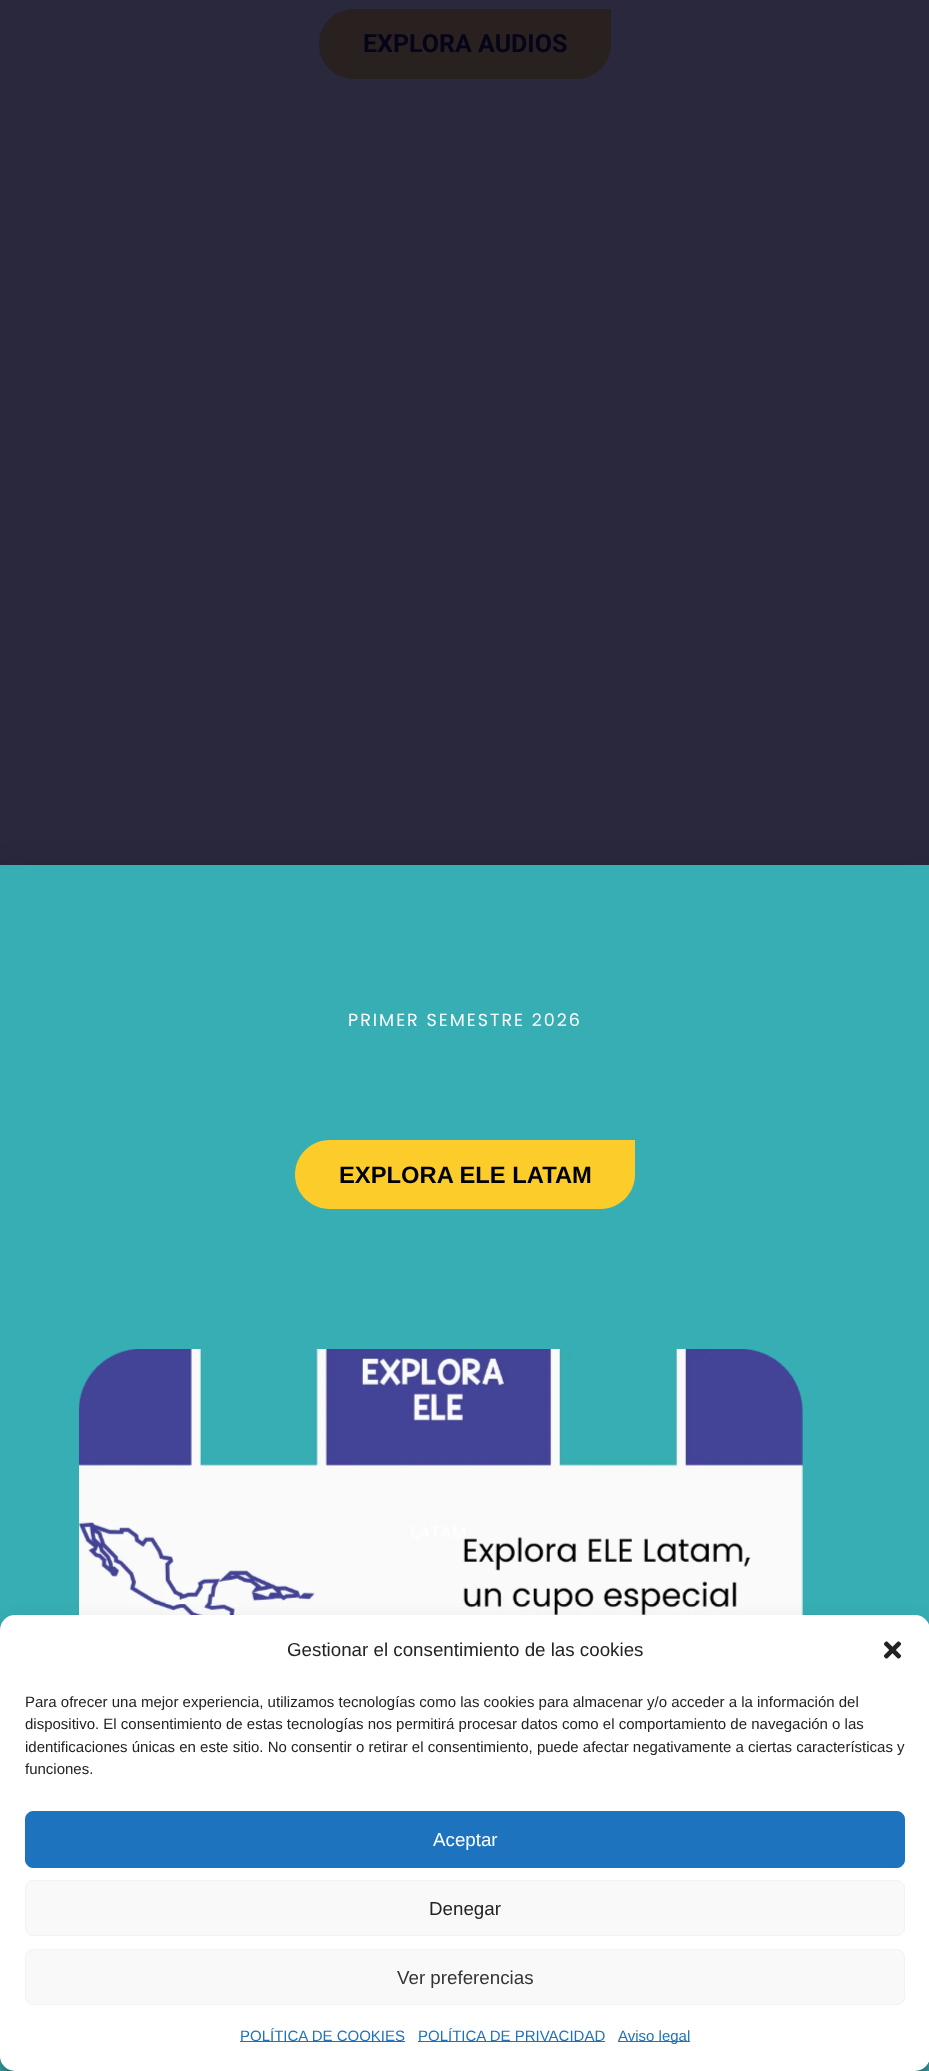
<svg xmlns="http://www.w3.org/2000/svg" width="929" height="2071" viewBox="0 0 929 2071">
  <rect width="100%" height="100%" fill="#29283d"/>
  <path d="M354 9H611V44C611 63.5 595.5 79 576 79H354C334.5 79 319 63.5 319 44C319 24.5 334.5 9 354 9Z" fill="#28211f"/>
  <path d="M-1 871h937v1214H-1z" fill="#00000033" filter="blur(14.5px)"/>
  <path d="M0 865h929v1206H0z" fill="#37aeb3"/>
  <path d="M329.5 1140H635V1174.5C635 1193.5 619.5 1209 600.5 1209H329.5C310.5 1209 295 1193.5 295 1174.5C295 1155.5 310.5 1140 329.5 1140Z" fill="#fbcc2a"/>
  <image x="79" y="1349" width="724" height="266" href="img/1.png"/>
  <rect y="1623" width="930" height="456" rx="15" fill="#0000003b" filter="blur(4px)"/>
  <rect y="1628" width="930" height="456" rx="15" fill="#00000030" filter="blur(12.5px)"/>
  <rect y="1615" width="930" height="456" rx="15" fill="#fff"/>
  <image x="883" y="1641" width="19" height="18" href="img/2.png"/>
  <rect x="25.5" y="1811.5" width="879" height="56" rx="7.5" fill="#1e73be" stroke="#1e73be"/>
  <rect x="25.5" y="1880.5" width="879" height="55" rx="7.5" fill="#f9f9f9" stroke="#f2f2f2"/>
  <rect x="25.5" y="1949.5" width="879" height="55" rx="7.5" fill="#f9f9f9" stroke="#f2f2f2"/>
  <path d="M240 2041h165v1H240z" fill="#1e73be"/>
  <path d="M418 2041h187v1H418z" fill="#1e73be"/>
  <path d="M618 2041h72v1H618z" fill="#1e73be"/>
  <text x="363" y="52" font-family="Roboto" font-size="25" font-weight="bold" fill="#050419">EXPLORA AUDIOS</text>
  <text x="348" y="1026" font-family="Poppins" font-size="17.5" letter-spacing="2" fill="#fff">PRIMER SEMESTRE 2026</text>
  <text x="339" y="1183" font-family="Liberation Sans" font-size="23.75" font-weight="bold" fill="#000">EXPLORA ELE LATAM</text>
  <text x="287" y="1656" font-family="Liberation Sans" font-size="18.75" fill="#222">Gestionar el consentimiento de las cookies</text>
  <g font-family="Liberation Sans" font-size="15" fill="#222">
    <text x="25" y="1707">Para ofrecer una mejor experiencia, utilizamos tecnologías como las cookies para almacenar y/o acceder a la información del</text>
    <text x="25" y="1729">dispositivo. El consentimiento de estas tecnologías nos permitirá procesar datos como el comportamiento de navegación o las</text>
    <text x="25" y="1752">identificaciones únicas en este sitio. No consentir o retirar el consentimiento, puede afectar negativamente a ciertas características y</text>
    <text x="25" y="1774">funciones.</text>
  </g>
  <text x="433" y="1846" font-family="Liberation Sans" font-size="18.75" fill="#fff">Aceptar</text>
  <text x="429" y="1915" font-family="Liberation Sans" font-size="18.75" fill="#222">Denegar</text>
  <text x="397" y="1984" font-family="Liberation Sans" font-size="18.75" fill="#333">Ver preferencias</text>
  <g font-family="Liberation Sans" font-size="15" fill="#1e73be">
    <text x="240" y="2041">POLÍTICA DE COOKIES</text>
    <text x="418" y="2041">POLÍTICA DE PRIVACIDAD</text>
    <text x="618" y="2041">Aviso legal</text>
  </g>
</svg>
